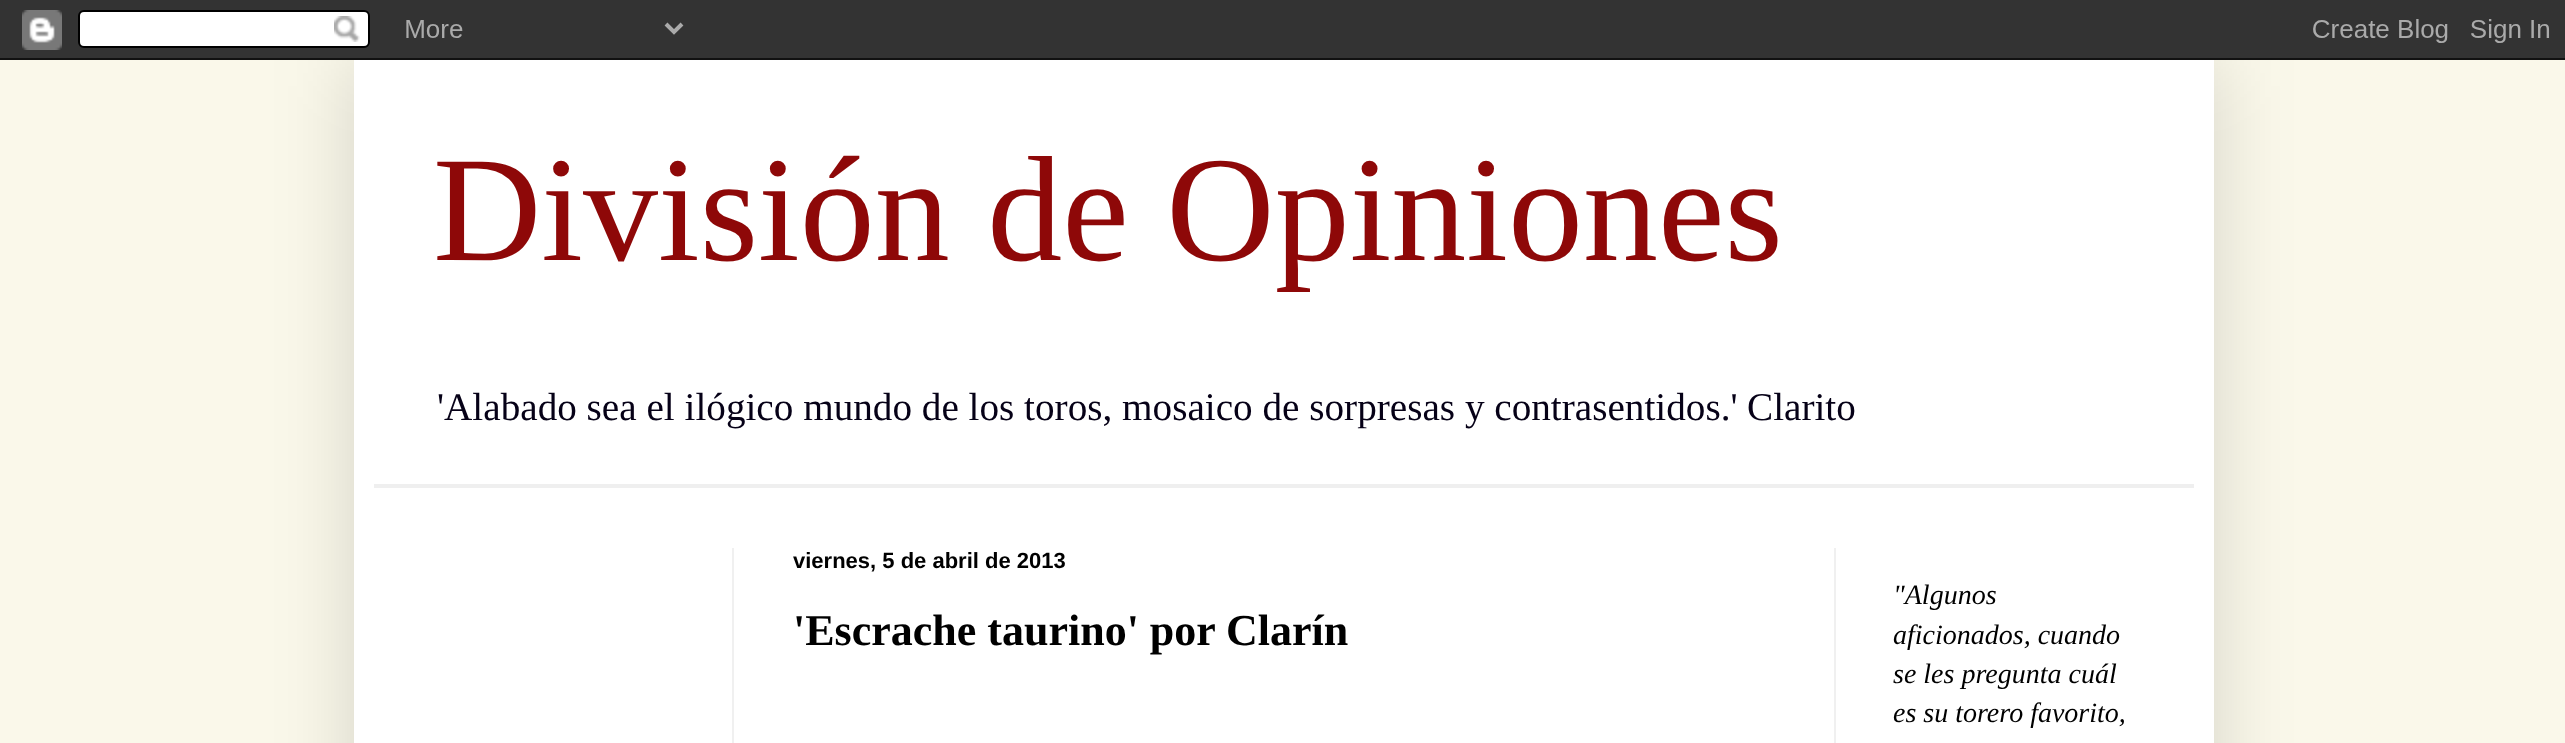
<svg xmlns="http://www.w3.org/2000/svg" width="2565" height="743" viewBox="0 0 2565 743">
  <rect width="100%" height="100%" fill="#faf8ea"/>
  <path d="M354 60h1860v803H354z" fill="#00000026" filter="blur(40px)"/>
  <image x="0" y="0" width="2565" height="60" href="img/1.png"/>
  <path d="M354 60h1860v683H354z" fill="#fff"/>
  <path d="M374 484h1820v4H374z" fill="#efefef"/>
  <path d="M732 548h2v195H732z" fill="#f0f0f0"/>
  <path d="M1834 548h2v195H1834z" fill="#f0f0f0"/>
  <text x="433" y="260" font-family="Liberation Serif" font-size="150" fill="#8e0808">División de Opiniones</text>
  <g font-family="Liberation Serif" font-size="39.2" fill="#060117">
    <text x="437" y="420">'Alabado sea el ilógico mundo de los toros, mosaico de sorpresas y contrasentidos.'</text>
    <text x="1747" y="420">Clarito</text>
  </g>
  <text x="793" y="568" font-family="Liberation Sans" font-size="22" font-weight="bold" fill="#000">viernes, 5 de abril de 2013</text>
  <text x="793" y="645" font-family="Liberation Serif" font-size="44" font-weight="bold" fill="#000">'Escrache taurino' por Clarín</text>
  <g font-family="Liberation Serif" font-size="28" font-style="italic" fill="#000">
    <text x="1893" y="604">"Algunos</text>
    <text x="1893" y="644">aficionados, cuando</text>
    <text x="1893" y="683">se les pregunta cuál</text>
    <text x="1893" y="722">es su torero favorito,</text>
  </g>
</svg>
